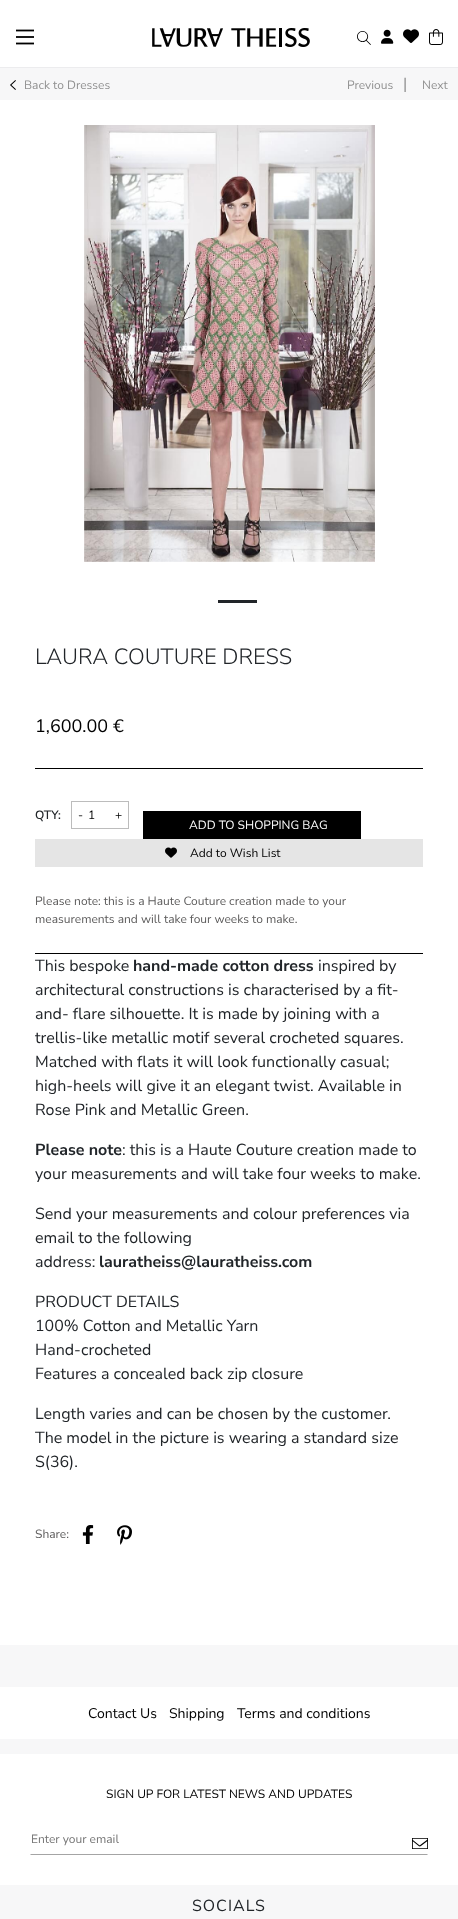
<svg xmlns="http://www.w3.org/2000/svg" width="458" height="1919" viewBox="0 0 458 1919">
  <rect width="100%" height="100%" fill="#fff"/>
  <path d="M0 67h458v1H0z" fill="#ececee"/>
  <path d="M16 30.5H34" fill="none" stroke="#000" stroke-width="1.8"/>
  <path d="M16 36h18v2H16z" fill="#1a1a1a"/>
  <path d="M16 43.5H34" fill="none" stroke="#000" stroke-width="1.8"/>
  <image x="152" y="28" width="158" height="19" href="img/1.png"/>
  <image x="357" y="31" width="14" height="14" href="img/2.png"/>
  <image x="381" y="29" width="13" height="15" href="img/3.png"/>
  <image x="403" y="29" width="16" height="14" href="img/4.png"/>
  <image x="429" y="29" width="14" height="16" href="img/5.png"/>
  <path d="M0 68h458v32H0z" fill="#f7f7f8"/>
  <image x="10" y="80" width="6" height="10" href="img/6.png"/>
  <path d="M84 125h291v437H84z" fill="#fafafa"/>
  <image x="84" y="125" width="291" height="437" href="img/7.png"/>
  <path d="M218 600h39v3H218z" fill="#212529"/>
  <path d="M35 768h388v1H35z" fill="#000"/>
  <path d="M35 953h388v1H35z" fill="#000"/>
  <path d="M71 801h58v1H71z" fill="#bcbcbc"/>
  <path d="M71 828h43v1H71z" fill="#bcbcbc"/>
  <path d="M71 801h1v28H71z" fill="#bcbcbc"/>
  <path d="M128 801h1v28H128z" fill="#bcbcbc"/>
  <path d="M109 828h20v1H109z" fill="#bcbcbc"/>
  <path d="M143 811h218v28H143z" fill="#000"/>
  <path d="M35 839h388v28H35z" fill="#e5e5e5"/>
  <image x="165" y="847" width="12" height="11" href="img/8.png"/>
  <image x="82" y="1525" width="12" height="19" href="img/9.png"/>
  <image x="117" y="1525" width="15" height="20" href="img/10.png"/>
  <path d="M0 1645h458v42H0z" fill="#f7f7f8"/>
  <path d="M0 1739h458v15H0z" fill="#f7f7f8"/>
  <path d="M428 1855H30L31 1854H427Z" fill="#a4a4a4"/>
  <image x="412" y="1838" width="16" height="11" href="img/11.png"/>
  <path d="M0 1885h458v34H0z" fill="#f7f7f8"/>
  <g font-family="Nunito Sans" font-size="12" fill="#919191">
    <text x="24" y="89">Back to Dresses</text>
    <text x="347" y="89">Previous</text>
  </g>
  <text x="403" y="89" font-family="Nunito Sans" font-size="16" fill="#919191">|</text>
  <text x="422" y="89" font-family="Nunito Sans" font-size="12" fill="#919191">Next</text>
  <text x="35" y="664" font-family="Nunito Sans" font-size="22" font-weight="300" fill="#212529">LAURA COUTURE DRESS</text>
  <g font-family="Nunito Sans" font-size="18" fill="#000">
    <text x="35" y="732">1,600.00</text>
    <text x="113" y="732">€</text>
  </g>
  <text x="35" y="819" font-family="Nunito Sans" font-size="12" font-weight="600" fill="#212529">QTY:</text>
  <g font-family="Nunito Sans" font-size="12" fill="#000">
    <text x="78" y="819">-</text>
    <text x="88" y="819">1</text>
    <text x="115" y="819">+</text>
  </g>
  <text x="189" y="829" font-family="Nunito Sans" font-size="12" fill="#fff">ADD TO SHOPPING BAG</text>
  <text x="190" y="857" font-family="Nunito Sans" font-size="12" fill="#000">Add to Wish List</text>
  <g font-family="Nunito Sans" font-size="12" fill="#5c5b5b">
    <text x="35" y="905">Please note: this is a Haute Couture creation made to your</text>
    <text x="35" y="923">measurements and will take four weeks to make.</text>
  </g>
  <text x="35" y="971" font-family="Nunito Sans" font-size="16" fill="#212529">This bespoke</text>
  <text x="133" y="971" font-family="Nunito Sans" font-size="16" font-weight="bold" fill="#212529">hand-made cotton dress</text>
  <g font-family="Nunito Sans" font-size="16" fill="#212529">
    <text x="318" y="971">inspired by</text>
    <text x="35" y="995">architectural constructions is characterised by a fit-</text>
    <text x="35" y="1019">and- flare silhouette. It is made by joining with a</text>
    <text x="35" y="1043">trellis-like metallic motif several crocheted squares.</text>
    <text x="35" y="1067">Matched with flats it will look functionally casual;</text>
    <text x="35" y="1091">high-heels will give it an elegant twist. Available in</text>
    <text x="35" y="1115">Rose Pink and Metallic Green.</text>
  </g>
  <text x="35" y="1155" font-family="Nunito Sans" font-size="16" font-weight="bold" fill="#212529">Please note</text>
  <g font-family="Nunito Sans" font-size="16" fill="#212529">
    <text x="122" y="1155">: this is a Haute Couture creation made to</text>
    <text x="35" y="1179">your measurements and will take four weeks to make.</text>
    <text x="35" y="1219">Send your measurements and colour preferences via</text>
    <text x="35" y="1243">email to the following</text>
    <text x="35" y="1267">address:</text>
  </g>
  <text x="99" y="1267" font-family="Nunito Sans" font-size="16" font-weight="bold" fill="#212529">lauratheiss@lauratheiss.com</text>
  <g font-family="Nunito Sans" font-size="16" fill="#212529">
    <text x="35" y="1307">PRODUCT DETAILS</text>
    <text x="35" y="1331">100% Cotton and Metallic Yarn</text>
    <text x="35" y="1355">Hand-crocheted</text>
    <text x="35" y="1379">Features a concealed back zip closure</text>
    <text x="35" y="1419">Length varies and can be chosen by the customer.</text>
    <text x="35" y="1443">The model in the picture is wearing a standard size</text>
    <text x="35" y="1467">S(36).</text>
  </g>
  <text x="35" y="1538" font-family="Nunito Sans" font-size="12" fill="#5c5b5b">Share:</text>
  <g font-family="Nunito Sans" font-size="14" fill="#000">
    <text x="88" y="1718">Contact Us</text>
    <text x="169" y="1718">Shipping</text>
    <text x="237" y="1718">Terms and conditions</text>
  </g>
  <text x="106" y="1798" font-family="Nunito Sans" font-size="12" fill="#000">SIGN UP FOR LATEST NEWS AND UPDATES</text>
  <text x="31" y="1843" font-family="Nunito Sans" font-size="12" fill="#757575">Enter your email</text>
  <text x="192" y="1911" font-family="Nunito Sans" font-size="16" letter-spacing="1" fill="#212529">SOCIALS</text>
</svg>
